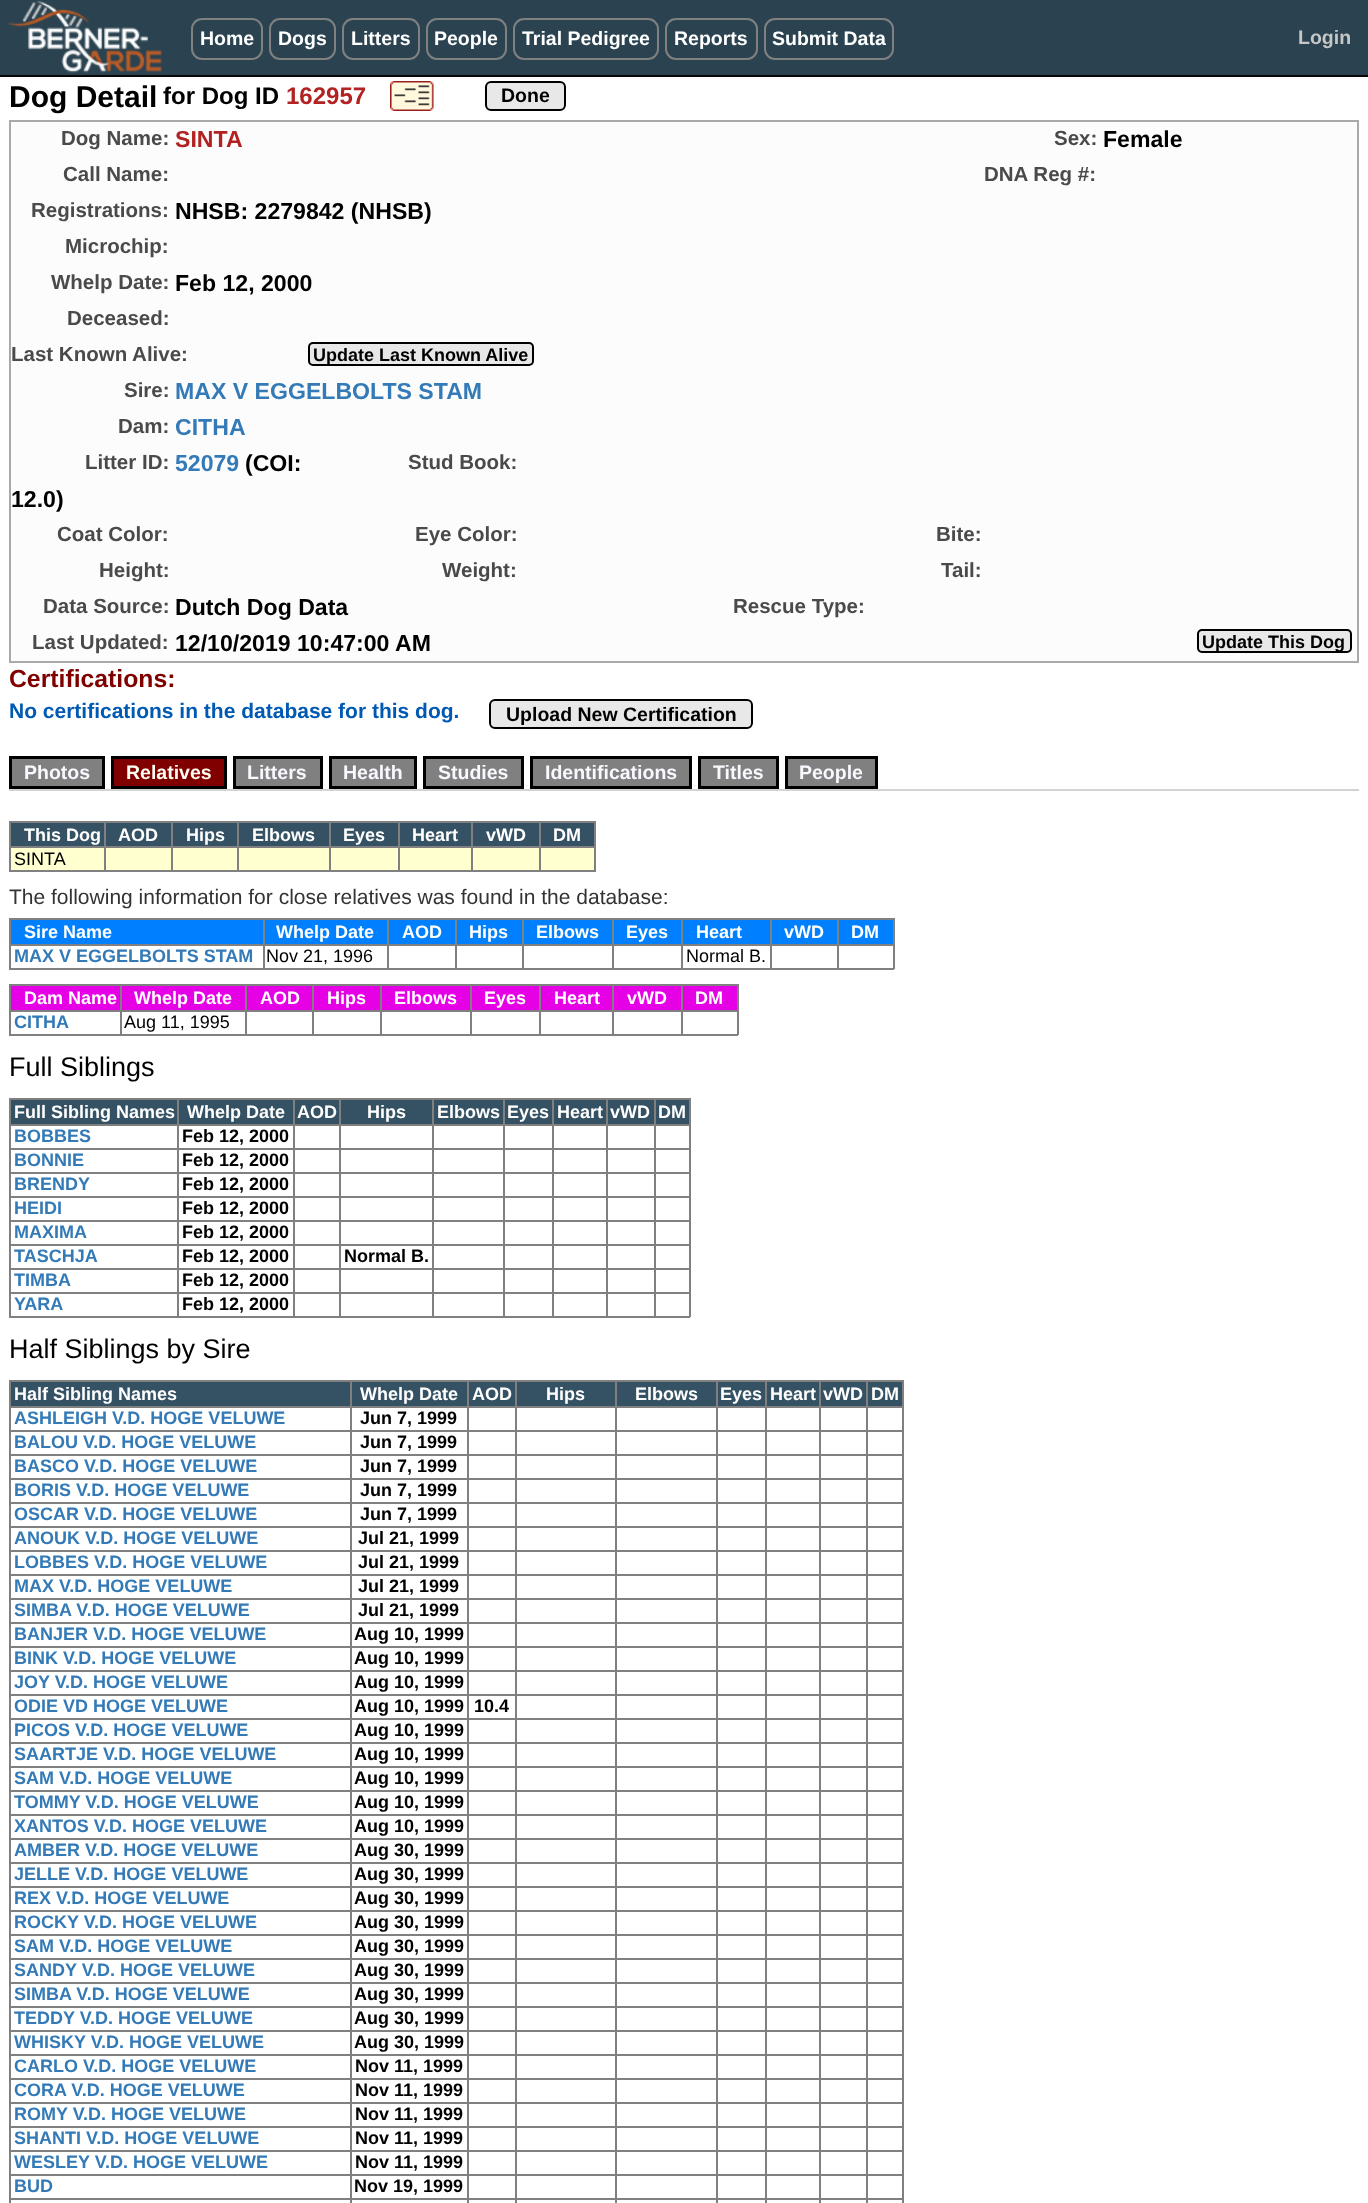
<svg xmlns="http://www.w3.org/2000/svg" width="1368" height="2203" viewBox="0 0 1368 2203">
  <defs>
    <clipPath id="clip1"><rect x="1199" y="630" width="151" height="21" rx="3"/></clipPath>
  </defs>
  <rect width="100%" height="100%" fill="#fff"/>
  <path d="M0 0h1368v75H0z" fill="#2b4351"/>
  <path d="M0 75h1368v2H0z" fill="#080808"/>
  <image x="7" y="1" width="155" height="72" href="img/1.png"/>
  <rect x="192" y="19" width="70" height="40" rx="10" fill="none" stroke="#808080" stroke-width="2"/>
  <rect x="270" y="19" width="65" height="40" rx="10" fill="none" stroke="#808080" stroke-width="2"/>
  <rect x="343" y="19" width="76" height="40" rx="10" fill="none" stroke="#808080" stroke-width="2"/>
  <rect x="427" y="19" width="79" height="40" rx="10" fill="none" stroke="#808080" stroke-width="2"/>
  <rect x="514" y="19" width="144" height="40" rx="10" fill="none" stroke="#808080" stroke-width="2"/>
  <rect x="666" y="19" width="91" height="40" rx="10" fill="none" stroke="#808080" stroke-width="2"/>
  <rect x="765" y="19" width="128" height="40" rx="10" fill="none" stroke="#808080" stroke-width="2"/>
  <image x="390" y="81" width="44" height="30" href="img/2.png"/>
  <rect x="486" y="82" width="79" height="28" rx="5" fill="#e8e8e8" stroke="#000" stroke-width="2"/>
  <path d="M10 121h1348v541H10z" fill="#fcfcfc" stroke="#a9a9a9" stroke-width="2"/>
  <rect x="309" y="343" width="224" height="22" rx="4" fill="#e8e8e8" stroke="#000" stroke-width="2"/>
  <rect x="1198" y="630" width="153" height="22" rx="4" fill="#e8e8e8" stroke="#000" stroke-width="2"/>
  <rect x="490" y="700" width="262" height="28" rx="5" fill="#e8e8e8" stroke="#000" stroke-width="2"/>
  <path d="M10.5 757.5h93v30H10.5z" fill="#808080" stroke="#000" stroke-width="3"/>
  <path d="M112.5 757.5h113v30H112.5z" fill="#800000" stroke="#000" stroke-width="3"/>
  <path d="M234.5 757.5h87v30H234.5z" fill="#808080" stroke="#000" stroke-width="3"/>
  <path d="M330.5 757.5h85v30H330.5z" fill="#808080" stroke="#000" stroke-width="3"/>
  <path d="M424.5 757.5h98v30H424.5z" fill="#808080" stroke="#000" stroke-width="3"/>
  <path d="M531.5 757.5h159v30H531.5z" fill="#808080" stroke="#000" stroke-width="3"/>
  <path d="M699.5 757.5h78v30H699.5z" fill="#808080" stroke="#000" stroke-width="3"/>
  <path d="M786.5 757.5h90v30H786.5z" fill="#808080" stroke="#000" stroke-width="3"/>
  <path d="M9 789h1350v2H9z" fill="#d3d3d3"/>
  <path d="M9 821h587v2H9z" fill="#808080"/>
  <path d="M594 821h2v51H594z" fill="#808080"/>
  <path d="M9 870h587v2H9z" fill="#808080"/>
  <path d="M9 821h2v51H9z" fill="#808080"/>
  <path d="M11 823h93v23H11z" fill="#355264"/>
  <path d="M106 823h65v23H106z" fill="#355264"/>
  <path d="M539 846h57v2H539z" fill="#808080"/>
  <path d="M11 848h583v22H11z" fill="#ffffcf"/>
  <path d="M539 846h2v26H539z" fill="#808080"/>
  <path d="M471 846h69v2H471z" fill="#808080"/>
  <path d="M471 846h2v26H471z" fill="#808080"/>
  <path d="M398 846h75v2H398z" fill="#808080"/>
  <path d="M398 846h2v26H398z" fill="#808080"/>
  <path d="M329 846h70v2H329z" fill="#808080"/>
  <path d="M329 846h2v26H329z" fill="#808080"/>
  <path d="M237 846h93v2H237z" fill="#808080"/>
  <path d="M237 846h2v26H237z" fill="#808080"/>
  <path d="M171 846h68v2H171z" fill="#808080"/>
  <path d="M171 846h2v26H171z" fill="#808080"/>
  <path d="M104 846h69v2H104z" fill="#808080"/>
  <path d="M104 846h2v26H104z" fill="#808080"/>
  <path d="M9 846h96v2H9z" fill="#808080"/>
  <path d="M104 821h2v27H104z" fill="#808080"/>
  <path d="M173 823h64v23H173z" fill="#355264"/>
  <path d="M171 821h2v27H171z" fill="#808080"/>
  <path d="M239 823h90v23H239z" fill="#355264"/>
  <path d="M237 821h2v27H237z" fill="#808080"/>
  <path d="M331 823h67v23H331z" fill="#355264"/>
  <path d="M329 821h2v27H329z" fill="#808080"/>
  <path d="M400 823h71v23H400z" fill="#355264"/>
  <path d="M398 821h2v27H398z" fill="#808080"/>
  <path d="M473 823h66v23H473z" fill="#355264"/>
  <path d="M471 821h2v27H471z" fill="#808080"/>
  <path d="M541 823h53v23H541z" fill="#355264"/>
  <path d="M539 821h2v27H539z" fill="#808080"/>
  <path d="M9 918h885v2H9z" fill="#808080"/>
  <path d="M893 918h2v51H893z" fill="#808080"/>
  <path d="M9 968h885v2H9z" fill="#808080"/>
  <path d="M9 918h2v51H9z" fill="#808080"/>
  <path d="M11 920h252v24H11z" fill="#0080ff"/>
  <path d="M265 920h122v24H265z" fill="#0080ff"/>
  <path d="M837 944h57v2H837z" fill="#808080"/>
  <path d="M837 944h2v25H837z" fill="#808080"/>
  <path d="M770 944h69v2H770z" fill="#808080"/>
  <path d="M770 944h2v25H770z" fill="#808080"/>
  <path d="M681 944h90v2H681z" fill="#808080"/>
  <path d="M681 944h2v25H681z" fill="#808080"/>
  <path d="M612 944h71v2H612z" fill="#808080"/>
  <path d="M612 944h2v25H612z" fill="#808080"/>
  <path d="M522 944h92v2H522z" fill="#808080"/>
  <path d="M522 944h2v25H522z" fill="#808080"/>
  <path d="M455 944h69v2H455z" fill="#808080"/>
  <path d="M455 944h2v25H455z" fill="#808080"/>
  <path d="M387 944h69v2H387z" fill="#808080"/>
  <path d="M387 944h2v25H387z" fill="#808080"/>
  <path d="M263 944h126v2H263z" fill="#808080"/>
  <path d="M263 944h2v25H263z" fill="#808080"/>
  <path d="M9 944h255v2H9z" fill="#808080"/>
  <path d="M263 918h2v27H263z" fill="#808080"/>
  <path d="M389 920h66v24H389z" fill="#0080ff"/>
  <path d="M387 918h2v27H387z" fill="#808080"/>
  <path d="M457 920h65v24H457z" fill="#0080ff"/>
  <path d="M455 918h2v27H455z" fill="#808080"/>
  <path d="M524 920h88v24H524z" fill="#0080ff"/>
  <path d="M522 918h2v27H522z" fill="#808080"/>
  <path d="M614 920h67v24H614z" fill="#0080ff"/>
  <path d="M612 918h2v27H612z" fill="#808080"/>
  <path d="M683 920h87v24H683z" fill="#0080ff"/>
  <path d="M681 918h2v27H681z" fill="#808080"/>
  <path d="M772 920h65v24H772z" fill="#0080ff"/>
  <path d="M770 918h2v27H770z" fill="#808080"/>
  <path d="M839 920h54v24H839z" fill="#0080ff"/>
  <path d="M837 918h2v27H837z" fill="#808080"/>
  <path d="M9 984h729v2H9z" fill="#808080"/>
  <path d="M737 984h2v51H737z" fill="#808080"/>
  <path d="M9 1034h729v2H9z" fill="#808080"/>
  <path d="M9 984h2v51H9z" fill="#808080"/>
  <path d="M11 986h109v24H11z" fill="#e600e6"/>
  <path d="M122 986h123v24H122z" fill="#e600e6"/>
  <path d="M681 1010h57v2H681z" fill="#808080"/>
  <path d="M681 1010h2v25H681z" fill="#808080"/>
  <path d="M612 1010h71v2H612z" fill="#808080"/>
  <path d="M612 1010h2v25H612z" fill="#808080"/>
  <path d="M539 1010h75v2H539z" fill="#808080"/>
  <path d="M539 1010h2v25H539z" fill="#808080"/>
  <path d="M470 1010h70v2H470z" fill="#808080"/>
  <path d="M470 1010h2v25H470z" fill="#808080"/>
  <path d="M380 1010h91v2H380z" fill="#808080"/>
  <path d="M380 1010h2v25H380z" fill="#808080"/>
  <path d="M312 1010h69v2H312z" fill="#808080"/>
  <path d="M312 1010h2v25H312z" fill="#808080"/>
  <path d="M245 1010h69v2H245z" fill="#808080"/>
  <path d="M245 1010h2v25H245z" fill="#808080"/>
  <path d="M120 1010h126v2H120z" fill="#808080"/>
  <path d="M120 1010h2v25H120z" fill="#808080"/>
  <path d="M9 1010h113v2H9z" fill="#808080"/>
  <path d="M120 984h2v27H120z" fill="#808080"/>
  <path d="M247 986h65v24H247z" fill="#e600e6"/>
  <path d="M245 984h2v27H245z" fill="#808080"/>
  <path d="M314 986h66v24H314z" fill="#e600e6"/>
  <path d="M312 984h2v27H312z" fill="#808080"/>
  <path d="M382 986h88v24H382z" fill="#e600e6"/>
  <path d="M380 984h2v27H380z" fill="#808080"/>
  <path d="M472 986h67v24H472z" fill="#e600e6"/>
  <path d="M470 984h2v27H470z" fill="#808080"/>
  <path d="M541 986h71v24H541z" fill="#e600e6"/>
  <path d="M539 984h2v27H539z" fill="#808080"/>
  <path d="M614 986h67v24H614z" fill="#e600e6"/>
  <path d="M612 984h2v27H612z" fill="#808080"/>
  <path d="M683 986h54v24H683z" fill="#e600e6"/>
  <path d="M681 984h2v27H681z" fill="#808080"/>
  <path d="M9 1098h681v2H9z" fill="#808080"/>
  <path d="M689 1098h2v219H689z" fill="#808080"/>
  <path d="M9 1316h681v2H9z" fill="#808080"/>
  <path d="M9 1098h2v219H9z" fill="#808080"/>
  <path d="M11 1100h678v24H11z" fill="#355264"/>
  <path d="M9 1124h681v2H9z" fill="#808080"/>
  <path d="M9 1148h681v2H9z" fill="#808080"/>
  <path d="M9 1172h681v2H9z" fill="#808080"/>
  <path d="M9 1196h681v2H9z" fill="#808080"/>
  <path d="M9 1220h681v2H9z" fill="#808080"/>
  <path d="M9 1244h681v2H9z" fill="#808080"/>
  <path d="M9 1268h681v2H9z" fill="#808080"/>
  <path d="M9 1292h681v2H9z" fill="#808080"/>
  <path d="M177 1098h2v219H177z" fill="#808080"/>
  <path d="M293 1098h2v219H293z" fill="#808080"/>
  <path d="M339 1098h2v219H339z" fill="#808080"/>
  <path d="M432 1098h2v219H432z" fill="#808080"/>
  <path d="M503 1098h2v219H503z" fill="#808080"/>
  <path d="M552 1098h2v219H552z" fill="#808080"/>
  <path d="M606 1098h2v219H606z" fill="#808080"/>
  <path d="M654 1098h2v219H654z" fill="#808080"/>
  <path d="M9 1380h894v2H9z" fill="#808080"/>
  <path d="M902 1380h2v823H902z" fill="#808080"/>
  <path d="M9 1380h2v823H9z" fill="#808080"/>
  <path d="M9 2198h894v2H9z" fill="#808080"/>
  <path d="M11 1382h891v24H11z" fill="#355264"/>
  <path d="M9 1406h894v2H9z" fill="#808080"/>
  <path d="M9 1430h894v2H9z" fill="#808080"/>
  <path d="M9 1454h894v2H9z" fill="#808080"/>
  <path d="M9 1478h894v2H9z" fill="#808080"/>
  <path d="M9 1502h894v2H9z" fill="#808080"/>
  <path d="M9 1526h894v2H9z" fill="#808080"/>
  <path d="M9 1550h894v2H9z" fill="#808080"/>
  <path d="M9 1574h894v2H9z" fill="#808080"/>
  <path d="M9 1598h894v2H9z" fill="#808080"/>
  <path d="M9 1622h894v2H9z" fill="#808080"/>
  <path d="M9 1646h894v2H9z" fill="#808080"/>
  <path d="M9 1670h894v2H9z" fill="#808080"/>
  <path d="M9 1694h894v2H9z" fill="#808080"/>
  <path d="M9 1718h894v2H9z" fill="#808080"/>
  <path d="M9 1742h894v2H9z" fill="#808080"/>
  <path d="M9 1766h894v2H9z" fill="#808080"/>
  <path d="M9 1790h894v2H9z" fill="#808080"/>
  <path d="M9 1814h894v2H9z" fill="#808080"/>
  <path d="M9 1838h894v2H9z" fill="#808080"/>
  <path d="M9 1862h894v2H9z" fill="#808080"/>
  <path d="M9 1886h894v2H9z" fill="#808080"/>
  <path d="M9 1910h894v2H9z" fill="#808080"/>
  <path d="M9 1934h894v2H9z" fill="#808080"/>
  <path d="M9 1958h894v2H9z" fill="#808080"/>
  <path d="M9 1982h894v2H9z" fill="#808080"/>
  <path d="M9 2006h894v2H9z" fill="#808080"/>
  <path d="M9 2030h894v2H9z" fill="#808080"/>
  <path d="M9 2054h894v2H9z" fill="#808080"/>
  <path d="M9 2078h894v2H9z" fill="#808080"/>
  <path d="M9 2102h894v2H9z" fill="#808080"/>
  <path d="M9 2126h894v2H9z" fill="#808080"/>
  <path d="M9 2150h894v2H9z" fill="#808080"/>
  <path d="M9 2174h894v2H9z" fill="#808080"/>
  <path d="M350 1380h2v823H350z" fill="#808080"/>
  <path d="M467 1380h2v823H467z" fill="#808080"/>
  <path d="M515 1380h2v823H515z" fill="#808080"/>
  <path d="M615 1380h2v823H615z" fill="#808080"/>
  <path d="M716 1380h2v823H716z" fill="#808080"/>
  <path d="M765 1380h2v823H765z" fill="#808080"/>
  <path d="M819 1380h2v823H819z" fill="#808080"/>
  <path d="M866 1380h2v823H866z" fill="#808080"/>
  <g font-family="Liberation Sans" font-size="19.5" font-weight="bold" fill="#fff">
    <text x="200" y="45">Home</text>
    <text x="278" y="45">Dogs</text>
    <text x="351" y="45">Litters</text>
    <text x="434" y="45">People</text>
    <text x="522" y="45">Trial Pedigree</text>
    <text x="674" y="45">Reports</text>
    <text x="772" y="45">Submit Data</text>
  </g>
  <text x="1298" y="44" font-family="Liberation Sans" font-size="19.5" font-weight="bold" fill="#c7c7c7">Login</text>
  <text x="9" y="107" font-family="Liberation Sans" font-size="30" font-weight="bold" fill="#000">Dog Detail</text>
  <text x="163" y="104" font-family="Liberation Sans" font-size="24" font-weight="bold" fill="#000">for Dog ID</text>
  <text x="286" y="104" font-family="Liberation Sans" font-size="24" font-weight="bold" fill="#b22222">162957</text>
  <text x="501" y="102" font-family="Liberation Sans" font-size="19.5" font-weight="bold" fill="#000">Done</text>
  <text x="61" y="145" font-family="Liberation Sans" font-size="20.5" font-weight="bold" fill="#4a4a4a">Dog Name:</text>
  <text x="175" y="147" font-family="Liberation Sans" font-size="23.1" font-weight="bold" fill="#b22222">SINTA</text>
  <text x="1054" y="145" font-family="Liberation Sans" font-size="20.5" font-weight="bold" fill="#4a4a4a">Sex:</text>
  <text x="1103" y="147" font-family="Liberation Sans" font-size="23.1" font-weight="bold" fill="#000">Female</text>
  <g font-family="Liberation Sans" font-size="20.5" font-weight="bold" fill="#4a4a4a">
    <text x="63" y="181">Call Name:</text>
    <text x="984" y="181">DNA Reg #:</text>
    <text x="31" y="217">Registrations:</text>
  </g>
  <text x="175" y="219" font-family="Liberation Sans" font-size="23.1" font-weight="bold" fill="#000">NHSB: 2279842 (NHSB)</text>
  <g font-family="Liberation Sans" font-size="20.5" font-weight="bold" fill="#4a4a4a">
    <text x="65" y="253">Microchip:</text>
    <text x="51" y="289">Whelp Date:</text>
  </g>
  <text x="175" y="291" font-family="Liberation Sans" font-size="23.1" font-weight="bold" fill="#000">Feb 12, 2000</text>
  <g font-family="Liberation Sans" font-size="20.5" font-weight="bold" fill="#4a4a4a">
    <text x="67" y="325">Deceased:</text>
    <text x="11" y="361">Last Known Alive:</text>
  </g>
  <text x="313" y="361" font-family="Liberation Sans" font-size="18" font-weight="bold" fill="#000">Update Last Known Alive</text>
  <text x="124" y="397" font-family="Liberation Sans" font-size="20.5" font-weight="bold" fill="#4a4a4a">Sire:</text>
  <text x="175" y="399" font-family="Liberation Sans" font-size="23.1" font-weight="bold" fill="#337ab7">MAX V EGGELBOLTS STAM</text>
  <text x="118" y="433" font-family="Liberation Sans" font-size="20.5" font-weight="bold" fill="#4a4a4a">Dam:</text>
  <text x="175" y="435" font-family="Liberation Sans" font-size="23.1" font-weight="bold" fill="#337ab7">CITHA</text>
  <text x="85" y="469" font-family="Liberation Sans" font-size="20.5" font-weight="bold" fill="#4a4a4a">Litter ID:</text>
  <text x="175" y="471" font-family="Liberation Sans" font-size="23.1" font-weight="bold" fill="#337ab7">52079</text>
  <g font-family="Liberation Sans" font-size="23.1" font-weight="bold" fill="#000">
    <text x="245" y="471">(COI:</text>
    <text x="11" y="507">12.0)</text>
  </g>
  <g font-family="Liberation Sans" font-size="20.5" font-weight="bold" fill="#4a4a4a">
    <text x="408" y="469">Stud Book:</text>
    <text x="57" y="541">Coat Color:</text>
    <text x="415" y="541">Eye Color:</text>
    <text x="936" y="541">Bite:</text>
    <text x="99" y="577">Height:</text>
    <text x="442" y="577">Weight:</text>
    <text x="941" y="577">Tail:</text>
    <text x="43" y="613">Data Source:</text>
  </g>
  <text x="175" y="615" font-family="Liberation Sans" font-size="23.1" font-weight="bold" fill="#000">Dutch Dog Data</text>
  <g font-family="Liberation Sans" font-size="20.5" font-weight="bold" fill="#4a4a4a">
    <text x="733" y="613">Rescue Type:</text>
    <text x="32" y="649">Last Updated:</text>
  </g>
  <text x="175" y="651" font-family="Liberation Sans" font-size="23.1" font-weight="bold" fill="#000">12/10/2019 10:47:00 AM</text>
  <g clip-path="url(#clip1)">
    <text x="1202" y="648" font-family="Liberation Sans" font-size="18" font-weight="bold" fill="#000">Update This Dog</text>
  </g>
  <text x="9" y="687" font-family="Liberation Sans" font-size="24.75" font-weight="bold" fill="#800000">Certifications:</text>
  <text x="9" y="718" font-family="Liberation Sans" font-size="21" font-weight="bold" fill="#0059b3">No certifications in the database for this dog.</text>
  <text x="506" y="721" font-family="Liberation Sans" font-size="19.5" font-weight="bold" fill="#000">Upload New Certification</text>
  <text x="24" y="779" font-family="Liberation Sans" font-size="19.5" font-weight="bold" fill="#f8f8ff">Photos</text>
  <text x="126" y="779" font-family="Liberation Sans" font-size="19.5" font-weight="bold" fill="#fefef2">Relatives</text>
  <g font-family="Liberation Sans" font-size="19.5" font-weight="bold" fill="#f8f8ff">
    <text x="247" y="779">Litters</text>
    <text x="343" y="779">Health</text>
    <text x="438" y="779">Studies</text>
    <text x="545" y="779">Identifications</text>
    <text x="713" y="779">Titles</text>
    <text x="799" y="779">People</text>
  </g>
  <g font-family="Liberation Sans" font-size="18" font-weight="bold" fill="#fff">
    <text x="24" y="841">This Dog</text>
    <text x="118" y="841">AOD</text>
    <text x="186" y="841">Hips</text>
    <text x="252" y="841">Elbows</text>
    <text x="343" y="841">Eyes</text>
    <text x="412" y="841">Heart</text>
    <text x="486" y="841">vWD</text>
    <text x="553" y="841">DM</text>
  </g>
  <text x="14" y="865" font-family="Liberation Sans" font-size="18" fill="#000">SINTA</text>
  <text x="9" y="904" font-family="Liberation Sans" font-size="21" fill="#333">The following information for close relatives was found in the database:</text>
  <g font-family="Liberation Sans" font-size="18" font-weight="bold" fill="#fff">
    <text x="24" y="938">Sire Name</text>
    <text x="276" y="938">Whelp Date</text>
    <text x="402" y="938">AOD</text>
    <text x="469" y="938">Hips</text>
    <text x="536" y="938">Elbows</text>
    <text x="626" y="938">Eyes</text>
    <text x="696" y="938">Heart</text>
    <text x="784" y="938">vWD</text>
    <text x="851" y="938">DM</text>
  </g>
  <text x="14" y="962" font-family="Liberation Sans" font-size="18" font-weight="bold" fill="#337ab7">MAX V EGGELBOLTS STAM</text>
  <g font-family="Liberation Sans" font-size="18" fill="#000">
    <text x="266" y="962">Nov 21, 1996</text>
    <text x="686" y="962">Normal B.</text>
  </g>
  <g font-family="Liberation Sans" font-size="18" font-weight="bold" fill="#fff">
    <text x="24" y="1004">Dam Name</text>
    <text x="134" y="1004">Whelp Date</text>
    <text x="260" y="1004">AOD</text>
    <text x="327" y="1004">Hips</text>
    <text x="394" y="1004">Elbows</text>
    <text x="484" y="1004">Eyes</text>
    <text x="554" y="1004">Heart</text>
    <text x="627" y="1004">vWD</text>
    <text x="695" y="1004">DM</text>
  </g>
  <text x="14" y="1028" font-family="Liberation Sans" font-size="18" font-weight="bold" fill="#337ab7">CITHA</text>
  <text x="124" y="1028" font-family="Liberation Sans" font-size="18" fill="#000">Aug 11, 1995</text>
  <text x="9" y="1076" font-family="Liberation Sans" font-size="27" fill="#000">Full Siblings</text>
  <g font-family="Liberation Sans" font-size="18" font-weight="bold" fill="#fff">
    <text x="14" y="1118">Full Sibling Names</text>
    <text x="187" y="1118">Whelp Date</text>
    <text x="297" y="1118">AOD</text>
    <text x="367" y="1118">Hips</text>
    <text x="437" y="1118">Elbows</text>
    <text x="507" y="1118">Eyes</text>
    <text x="557" y="1118">Heart</text>
    <text x="610" y="1118">vWD</text>
    <text x="658" y="1118">DM</text>
  </g>
  <text x="14" y="1142" font-family="Liberation Sans" font-size="18" font-weight="bold" fill="#337ab7">BOBBES</text>
  <text x="182" y="1142" font-family="Liberation Sans" font-size="18" font-weight="bold" fill="#000">Feb 12, 2000</text>
  <text x="14" y="1166" font-family="Liberation Sans" font-size="18" font-weight="bold" fill="#337ab7">BONNIE</text>
  <text x="182" y="1166" font-family="Liberation Sans" font-size="18" font-weight="bold" fill="#000">Feb 12, 2000</text>
  <text x="14" y="1190" font-family="Liberation Sans" font-size="18" font-weight="bold" fill="#337ab7">BRENDY</text>
  <text x="182" y="1190" font-family="Liberation Sans" font-size="18" font-weight="bold" fill="#000">Feb 12, 2000</text>
  <text x="14" y="1214" font-family="Liberation Sans" font-size="18" font-weight="bold" fill="#337ab7">HEIDI</text>
  <text x="182" y="1214" font-family="Liberation Sans" font-size="18" font-weight="bold" fill="#000">Feb 12, 2000</text>
  <text x="14" y="1238" font-family="Liberation Sans" font-size="18" font-weight="bold" fill="#337ab7">MAXIMA</text>
  <text x="182" y="1238" font-family="Liberation Sans" font-size="18" font-weight="bold" fill="#000">Feb 12, 2000</text>
  <text x="14" y="1262" font-family="Liberation Sans" font-size="18" font-weight="bold" fill="#337ab7">TASCHJA</text>
  <g font-family="Liberation Sans" font-size="18" font-weight="bold" fill="#000">
    <text x="182" y="1262">Feb 12, 2000</text>
    <text x="344" y="1262">Normal B.</text>
  </g>
  <text x="14" y="1286" font-family="Liberation Sans" font-size="18" font-weight="bold" fill="#337ab7">TIMBA</text>
  <text x="182" y="1286" font-family="Liberation Sans" font-size="18" font-weight="bold" fill="#000">Feb 12, 2000</text>
  <text x="14" y="1310" font-family="Liberation Sans" font-size="18" font-weight="bold" fill="#337ab7">YARA</text>
  <text x="182" y="1310" font-family="Liberation Sans" font-size="18" font-weight="bold" fill="#000">Feb 12, 2000</text>
  <text x="9" y="1358" font-family="Liberation Sans" font-size="27" fill="#000">Half Siblings by Sire</text>
  <g font-family="Liberation Sans" font-size="18" font-weight="bold" fill="#fff">
    <text x="14" y="1400">Half Sibling Names</text>
    <text x="360" y="1400">Whelp Date</text>
    <text x="472" y="1400">AOD</text>
    <text x="546" y="1400">Hips</text>
    <text x="635" y="1400">Elbows</text>
    <text x="720" y="1400">Eyes</text>
    <text x="770" y="1400">Heart</text>
    <text x="823" y="1400">vWD</text>
    <text x="871" y="1400">DM</text>
  </g>
  <text x="14" y="1424" font-family="Liberation Sans" font-size="18" font-weight="bold" fill="#337ab7">ASHLEIGH V.D. HOGE VELUWE</text>
  <text x="360" y="1424" font-family="Liberation Sans" font-size="18" font-weight="bold" fill="#000">Jun 7, 1999</text>
  <text x="14" y="1448" font-family="Liberation Sans" font-size="18" font-weight="bold" fill="#337ab7">BALOU V.D. HOGE VELUWE</text>
  <text x="360" y="1448" font-family="Liberation Sans" font-size="18" font-weight="bold" fill="#000">Jun 7, 1999</text>
  <text x="14" y="1472" font-family="Liberation Sans" font-size="18" font-weight="bold" fill="#337ab7">BASCO V.D. HOGE VELUWE</text>
  <text x="360" y="1472" font-family="Liberation Sans" font-size="18" font-weight="bold" fill="#000">Jun 7, 1999</text>
  <text x="14" y="1496" font-family="Liberation Sans" font-size="18" font-weight="bold" fill="#337ab7">BORIS V.D. HOGE VELUWE</text>
  <text x="360" y="1496" font-family="Liberation Sans" font-size="18" font-weight="bold" fill="#000">Jun 7, 1999</text>
  <text x="14" y="1520" font-family="Liberation Sans" font-size="18" font-weight="bold" fill="#337ab7">OSCAR V.D. HOGE VELUWE</text>
  <text x="360" y="1520" font-family="Liberation Sans" font-size="18" font-weight="bold" fill="#000">Jun 7, 1999</text>
  <text x="14" y="1544" font-family="Liberation Sans" font-size="18" font-weight="bold" fill="#337ab7">ANOUK V.D. HOGE VELUWE</text>
  <text x="358" y="1544" font-family="Liberation Sans" font-size="18" font-weight="bold" fill="#000">Jul 21, 1999</text>
  <text x="14" y="1568" font-family="Liberation Sans" font-size="18" font-weight="bold" fill="#337ab7">LOBBES V.D. HOGE VELUWE</text>
  <text x="358" y="1568" font-family="Liberation Sans" font-size="18" font-weight="bold" fill="#000">Jul 21, 1999</text>
  <text x="14" y="1592" font-family="Liberation Sans" font-size="18" font-weight="bold" fill="#337ab7">MAX V.D. HOGE VELUWE</text>
  <text x="358" y="1592" font-family="Liberation Sans" font-size="18" font-weight="bold" fill="#000">Jul 21, 1999</text>
  <text x="14" y="1616" font-family="Liberation Sans" font-size="18" font-weight="bold" fill="#337ab7">SIMBA V.D. HOGE VELUWE</text>
  <text x="358" y="1616" font-family="Liberation Sans" font-size="18" font-weight="bold" fill="#000">Jul 21, 1999</text>
  <text x="14" y="1640" font-family="Liberation Sans" font-size="18" font-weight="bold" fill="#337ab7">BANJER V.D. HOGE VELUWE</text>
  <text x="354" y="1640" font-family="Liberation Sans" font-size="18" font-weight="bold" fill="#000">Aug 10, 1999</text>
  <text x="14" y="1664" font-family="Liberation Sans" font-size="18" font-weight="bold" fill="#337ab7">BINK V.D. HOGE VELUWE</text>
  <text x="354" y="1664" font-family="Liberation Sans" font-size="18" font-weight="bold" fill="#000">Aug 10, 1999</text>
  <text x="14" y="1688" font-family="Liberation Sans" font-size="18" font-weight="bold" fill="#337ab7">JOY V.D. HOGE VELUWE</text>
  <text x="354" y="1688" font-family="Liberation Sans" font-size="18" font-weight="bold" fill="#000">Aug 10, 1999</text>
  <text x="14" y="1712" font-family="Liberation Sans" font-size="18" font-weight="bold" fill="#337ab7">ODIE VD HOGE VELUWE</text>
  <g font-family="Liberation Sans" font-size="18" font-weight="bold" fill="#000">
    <text x="354" y="1712">Aug 10, 1999</text>
    <text x="474" y="1712">10.4</text>
  </g>
  <text x="14" y="1736" font-family="Liberation Sans" font-size="18" font-weight="bold" fill="#337ab7">PICOS V.D. HOGE VELUWE</text>
  <text x="354" y="1736" font-family="Liberation Sans" font-size="18" font-weight="bold" fill="#000">Aug 10, 1999</text>
  <text x="14" y="1760" font-family="Liberation Sans" font-size="18" font-weight="bold" fill="#337ab7">SAARTJE V.D. HOGE VELUWE</text>
  <text x="354" y="1760" font-family="Liberation Sans" font-size="18" font-weight="bold" fill="#000">Aug 10, 1999</text>
  <text x="14" y="1784" font-family="Liberation Sans" font-size="18" font-weight="bold" fill="#337ab7">SAM V.D. HOGE VELUWE</text>
  <text x="354" y="1784" font-family="Liberation Sans" font-size="18" font-weight="bold" fill="#000">Aug 10, 1999</text>
  <text x="14" y="1808" font-family="Liberation Sans" font-size="18" font-weight="bold" fill="#337ab7">TOMMY V.D. HOGE VELUWE</text>
  <text x="354" y="1808" font-family="Liberation Sans" font-size="18" font-weight="bold" fill="#000">Aug 10, 1999</text>
  <text x="14" y="1832" font-family="Liberation Sans" font-size="18" font-weight="bold" fill="#337ab7">XANTOS V.D. HOGE VELUWE</text>
  <text x="354" y="1832" font-family="Liberation Sans" font-size="18" font-weight="bold" fill="#000">Aug 10, 1999</text>
  <text x="14" y="1856" font-family="Liberation Sans" font-size="18" font-weight="bold" fill="#337ab7">AMBER V.D. HOGE VELUWE</text>
  <text x="354" y="1856" font-family="Liberation Sans" font-size="18" font-weight="bold" fill="#000">Aug 30, 1999</text>
  <text x="14" y="1880" font-family="Liberation Sans" font-size="18" font-weight="bold" fill="#337ab7">JELLE V.D. HOGE VELUWE</text>
  <text x="354" y="1880" font-family="Liberation Sans" font-size="18" font-weight="bold" fill="#000">Aug 30, 1999</text>
  <text x="14" y="1904" font-family="Liberation Sans" font-size="18" font-weight="bold" fill="#337ab7">REX V.D. HOGE VELUWE</text>
  <text x="354" y="1904" font-family="Liberation Sans" font-size="18" font-weight="bold" fill="#000">Aug 30, 1999</text>
  <text x="14" y="1928" font-family="Liberation Sans" font-size="18" font-weight="bold" fill="#337ab7">ROCKY V.D. HOGE VELUWE</text>
  <text x="354" y="1928" font-family="Liberation Sans" font-size="18" font-weight="bold" fill="#000">Aug 30, 1999</text>
  <text x="14" y="1952" font-family="Liberation Sans" font-size="18" font-weight="bold" fill="#337ab7">SAM V.D. HOGE VELUWE</text>
  <text x="354" y="1952" font-family="Liberation Sans" font-size="18" font-weight="bold" fill="#000">Aug 30, 1999</text>
  <text x="14" y="1976" font-family="Liberation Sans" font-size="18" font-weight="bold" fill="#337ab7">SANDY V.D. HOGE VELUWE</text>
  <text x="354" y="1976" font-family="Liberation Sans" font-size="18" font-weight="bold" fill="#000">Aug 30, 1999</text>
  <text x="14" y="2000" font-family="Liberation Sans" font-size="18" font-weight="bold" fill="#337ab7">SIMBA V.D. HOGE VELUWE</text>
  <text x="354" y="2000" font-family="Liberation Sans" font-size="18" font-weight="bold" fill="#000">Aug 30, 1999</text>
  <text x="14" y="2024" font-family="Liberation Sans" font-size="18" font-weight="bold" fill="#337ab7">TEDDY V.D. HOGE VELUWE</text>
  <text x="354" y="2024" font-family="Liberation Sans" font-size="18" font-weight="bold" fill="#000">Aug 30, 1999</text>
  <text x="14" y="2048" font-family="Liberation Sans" font-size="18" font-weight="bold" fill="#337ab7">WHISKY V.D. HOGE VELUWE</text>
  <text x="354" y="2048" font-family="Liberation Sans" font-size="18" font-weight="bold" fill="#000">Aug 30, 1999</text>
  <text x="14" y="2072" font-family="Liberation Sans" font-size="18" font-weight="bold" fill="#337ab7">CARLO V.D. HOGE VELUWE</text>
  <text x="355" y="2072" font-family="Liberation Sans" font-size="18" font-weight="bold" fill="#000">Nov 11, 1999</text>
  <text x="14" y="2096" font-family="Liberation Sans" font-size="18" font-weight="bold" fill="#337ab7">CORA V.D. HOGE VELUWE</text>
  <text x="355" y="2096" font-family="Liberation Sans" font-size="18" font-weight="bold" fill="#000">Nov 11, 1999</text>
  <text x="14" y="2120" font-family="Liberation Sans" font-size="18" font-weight="bold" fill="#337ab7">ROMY V.D. HOGE VELUWE</text>
  <text x="355" y="2120" font-family="Liberation Sans" font-size="18" font-weight="bold" fill="#000">Nov 11, 1999</text>
  <text x="14" y="2144" font-family="Liberation Sans" font-size="18" font-weight="bold" fill="#337ab7">SHANTI V.D. HOGE VELUWE</text>
  <text x="355" y="2144" font-family="Liberation Sans" font-size="18" font-weight="bold" fill="#000">Nov 11, 1999</text>
  <text x="14" y="2168" font-family="Liberation Sans" font-size="18" font-weight="bold" fill="#337ab7">WESLEY V.D. HOGE VELUWE</text>
  <text x="355" y="2168" font-family="Liberation Sans" font-size="18" font-weight="bold" fill="#000">Nov 11, 1999</text>
  <text x="14" y="2192" font-family="Liberation Sans" font-size="18" font-weight="bold" fill="#337ab7">BUD</text>
  <text x="354" y="2192" font-family="Liberation Sans" font-size="18" font-weight="bold" fill="#000">Nov 19, 1999</text>
</svg>
